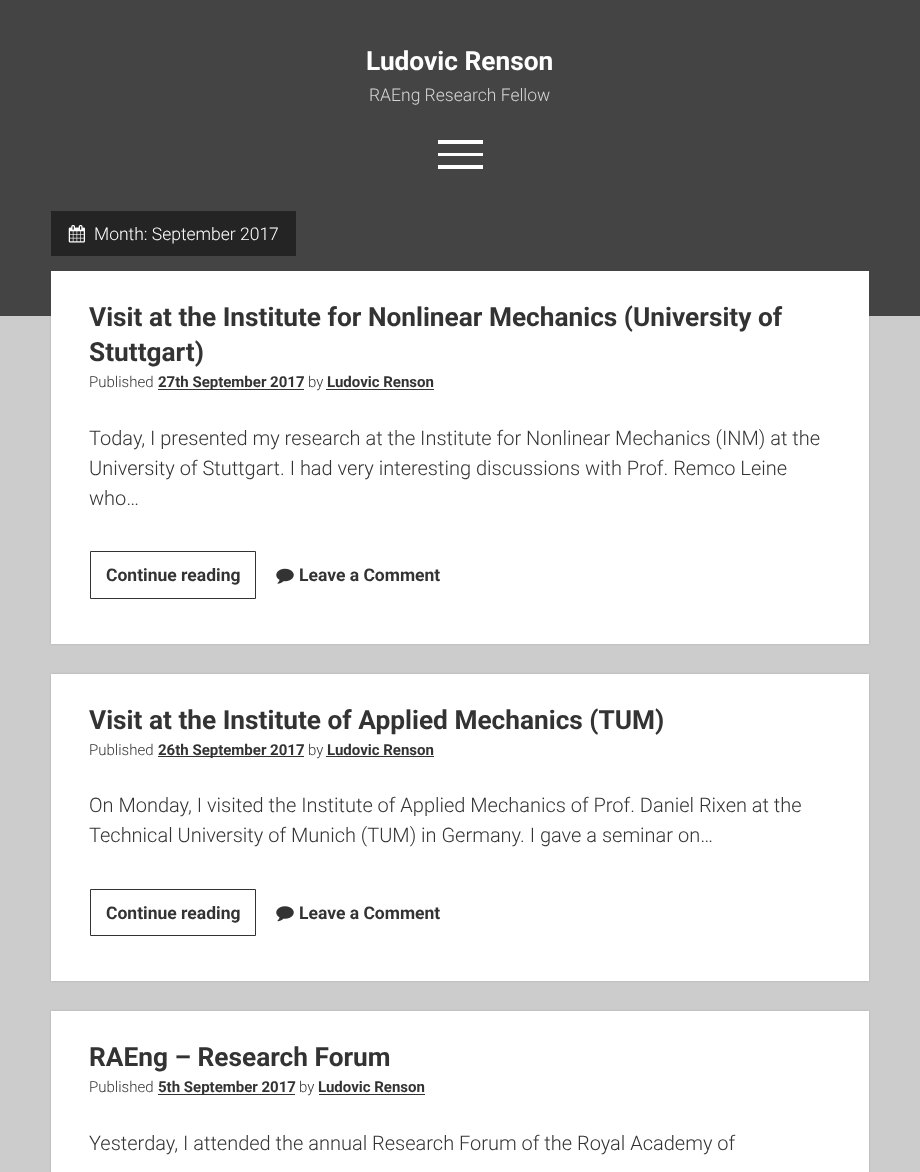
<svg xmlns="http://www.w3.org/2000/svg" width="920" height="1172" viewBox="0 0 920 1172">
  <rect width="100%" height="100%" fill="#ccc"/>
  <path d="M0 0h920v316H0z" fill="#444"/>
  <path d="M438 140h45v4H438z" fill="#fff"/>
  <path d="M438 153h45v3H438z" fill="#fff"/>
  <path d="M438 165h45v4H438z" fill="#fff"/>
  <path d="M51 211h245v45H51z" fill="#242424"/>
  <image x="68" y="225" width="17" height="18" href="img/1.png"/>
  <path d="M51 271h818v373H51z" fill="#3a3a3a33" filter="blur(1px)"/>
  <path d="M51 271h818v373H51z" fill="#fff"/>
  <path d="M158 389h146v1H158z" fill="#333"/>
  <path d="M326 389h108v1H326z" fill="#333"/>
  <path d="M90.5 551.5h165v47H90.5z" fill="none" stroke="#333"/>
  <image x="276" y="568" width="18" height="16" href="img/2.png"/>
  <path d="M51 674h818v307H51z" fill="#3a3a3a33" filter="blur(1px)"/>
  <path d="M51 674h818v307H51z" fill="#fff"/>
  <path d="M158 756h146v1H158z" fill="#333"/>
  <path d="M326 756h108v1H326z" fill="#333"/>
  <path d="M90.5 889.5h165v46H90.5z" fill="none" stroke="#333"/>
  <image x="276" y="906" width="18" height="16" href="img/3.png"/>
  <path d="M51 1011h818v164H51z" fill="#3a3a3a33" filter="blur(1px)"/>
  <path d="M51 1011h818v161H51z" fill="#fff"/>
  <path d="M158 1094h137v1H158z" fill="#333"/>
  <path d="M319 1094h106v1H319z" fill="#333"/>
  <text x="366" y="70" font-family="Roboto" font-size="26.25" font-weight="bold" fill="#fff">Ludovic Renson</text>
  <text x="369" y="101" font-family="Roboto" font-size="17.5" font-weight="300" fill="#d4d4d4">RAEng Research Fellow</text>
  <text x="94" y="240" font-family="Roboto" font-size="17.5" font-weight="300" fill="#fff">Month: September 2017</text>
  <g font-family="Roboto" font-size="26.25" font-weight="bold" fill="#333">
    <text x="89" y="326">Visit at the Institute for Nonlinear Mechanics (University of</text>
    <text x="89" y="361">Stuttgart)</text>
  </g>
  <text x="89" y="387" font-family="Roboto" font-size="15" font-weight="300" fill="#333">Published</text>
  <text x="158" y="387" font-family="Roboto" font-size="15" font-weight="bold" fill="#333">27th September 2017</text>
  <text x="308" y="387" font-family="Roboto" font-size="15" font-weight="300" fill="#333">by</text>
  <text x="327" y="387" font-family="Roboto" font-size="15" font-weight="bold" fill="#333">Ludovic Renson</text>
  <g font-family="Roboto" font-size="20" font-weight="300" fill="#333">
    <text x="89" y="445">Today, I presented my research at the Institute for Nonlinear Mechanics (INM) at the</text>
    <text x="89" y="475">University of Stuttgart. I had very interesting discussions with Prof. Remco Leine</text>
    <text x="89" y="505">who…</text>
  </g>
  <g font-family="Roboto" font-size="17.5" font-weight="bold" fill="#333">
    <text x="106" y="581">Continue reading</text>
    <text x="299" y="581">Leave a Comment</text>
  </g>
  <text x="89" y="729" font-family="Roboto" font-size="26.25" font-weight="bold" fill="#333">Visit at the Institute of Applied Mechanics (TUM)</text>
  <text x="89" y="755" font-family="Roboto" font-size="15" font-weight="300" fill="#333">Published</text>
  <text x="158" y="755" font-family="Roboto" font-size="15" font-weight="bold" fill="#333">26th September 2017</text>
  <text x="308" y="755" font-family="Roboto" font-size="15" font-weight="300" fill="#333">by</text>
  <text x="327" y="755" font-family="Roboto" font-size="15" font-weight="bold" fill="#333">Ludovic Renson</text>
  <g font-family="Roboto" font-size="20" font-weight="300" fill="#333">
    <text x="89" y="812">On Monday, I visited the Institute of Applied Mechanics of Prof. Daniel Rixen at the</text>
    <text x="89" y="842">Technical University of Munich (TUM) in Germany. I gave a seminar on…</text>
  </g>
  <g font-family="Roboto" font-size="17.5" font-weight="bold" fill="#333">
    <text x="106" y="919">Continue reading</text>
    <text x="299" y="919">Leave a Comment</text>
  </g>
  <text x="89" y="1066" font-family="Roboto" font-size="26.25" font-weight="bold" fill="#333">RAEng – Research Forum</text>
  <text x="89" y="1092" font-family="Roboto" font-size="15" font-weight="300" fill="#333">Published</text>
  <text x="158" y="1092" font-family="Roboto" font-size="15" font-weight="bold" fill="#333">5th September 2017</text>
  <text x="299" y="1092" font-family="Roboto" font-size="15" font-weight="300" fill="#333">by</text>
  <text x="318" y="1092" font-family="Roboto" font-size="15" font-weight="bold" fill="#333">Ludovic Renson</text>
  <text x="89" y="1150" font-family="Roboto" font-size="20" font-weight="300" fill="#333">Yesterday, I attended the annual Research Forum of the Royal Academy of</text>
</svg>
